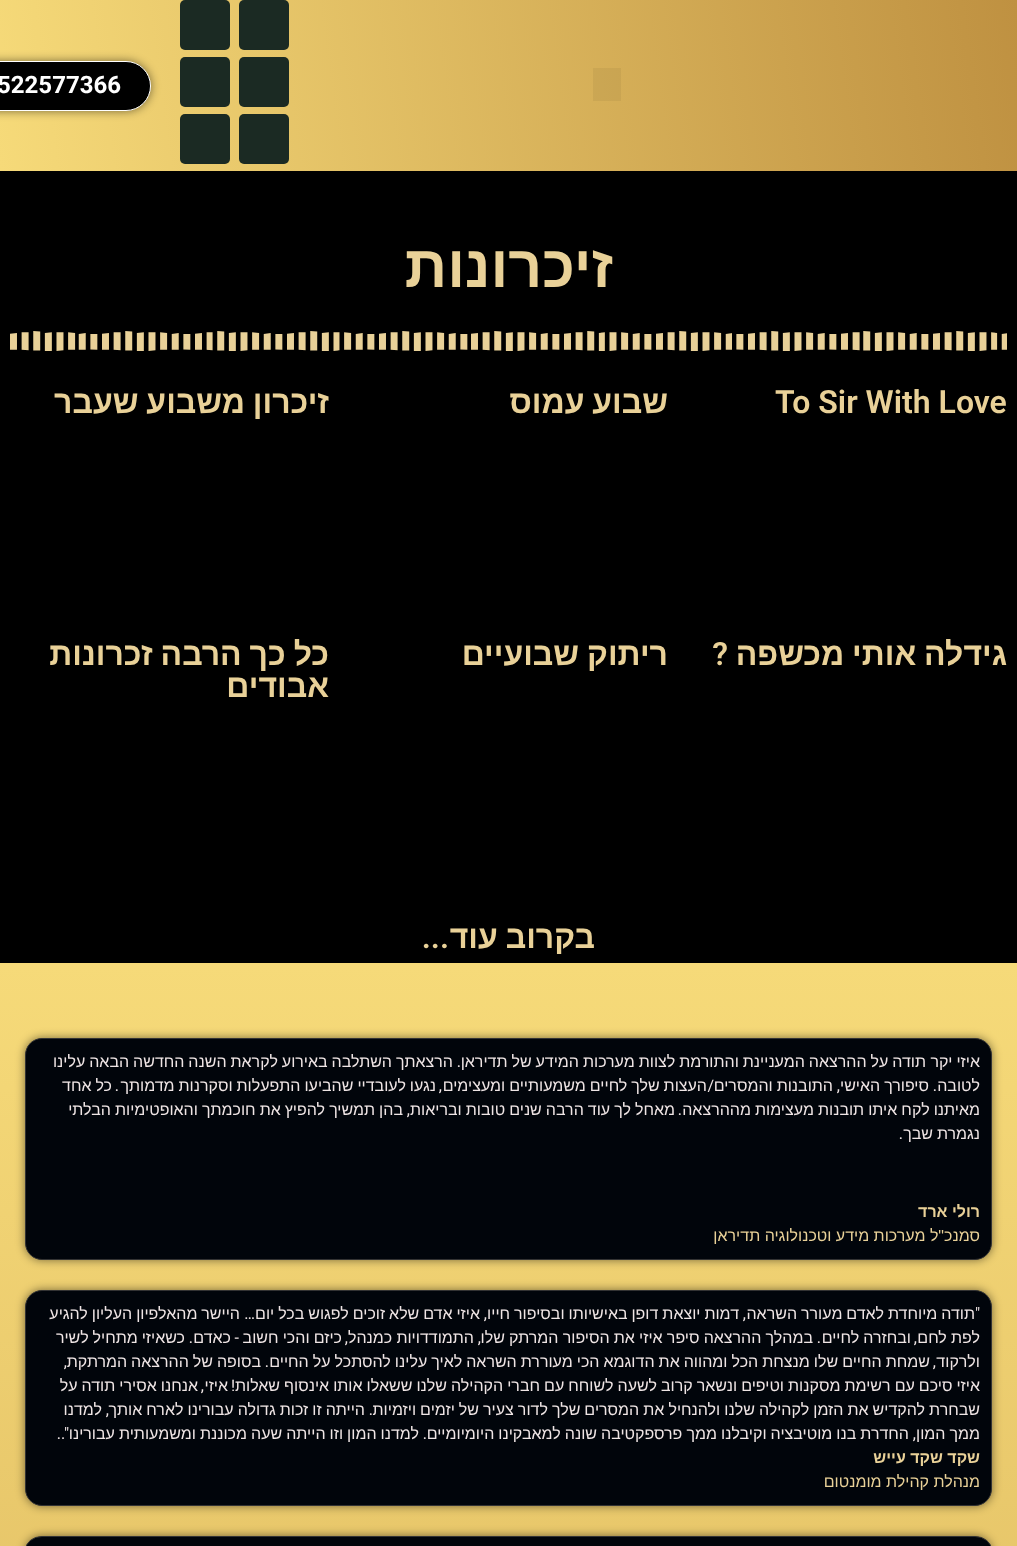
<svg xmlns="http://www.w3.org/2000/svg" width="1017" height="1546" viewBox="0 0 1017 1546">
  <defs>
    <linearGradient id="g1" gradientUnits="userSpaceOnUse" x1="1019" y1="14" x2="-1.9" y2="157"><stop offset="0" stop-color="#bf9141"/><stop offset="1" stop-color="#f6da79"/></linearGradient>
    <linearGradient id="g2" gradientUnits="userSpaceOnUse" x1="508" y1="963" x2="509" y2="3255"><stop offset="0" stop-color="#f6da79"/><stop offset="1" stop-color="#bf9141"/></linearGradient>
  </defs>
  <rect width="100%" height="100%" fill="#000"/>
  <path d="M0 0h1017v171H0z" fill="url(#g1)"/>
  <path d="M593 68h28v33H593z" fill="#0000000d"/>
  <rect x="239" width="50" height="50" rx="5" fill="#1b2a23"/>
  <rect x="180" width="50" height="50" rx="5" fill="#1b2a23"/>
  <rect x="239" y="57" width="50" height="50" rx="5" fill="#1b2a23"/>
  <rect x="180" y="57" width="50" height="50" rx="5" fill="#1b2a23"/>
  <rect x="239" y="114" width="50" height="50" rx="5" fill="#1b2a23"/>
  <rect x="180" y="114" width="50" height="50" rx="5" fill="#1b2a23"/>
  <rect x="-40" y="61" width="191" height="50" rx="25" fill="#00000080" filter="blur(5px)"/>
  <rect x="-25.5" y="61.5" width="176" height="49" rx="24.5" fill="#000" stroke="#fff"/>
  <image x="10" y="331" width="997" height="20" href="img/1.png"/>
  <path d="M0 963h1017v583H0z" fill="url(#g2)"/>
  <rect x="25" y="1038" width="967" height="222" rx="17" fill="#00000080" filter="blur(5px)"/>
  <rect x="25.5" y="1038.5" width="966" height="221" rx="16.5" fill="#01050b" stroke="#333"/>
  <rect x="25" y="1290" width="967" height="216" rx="17" fill="#00000080" filter="blur(5px)"/>
  <rect x="25.5" y="1290.5" width="966" height="215" rx="16.5" fill="#01050b" stroke="#333"/>
  <rect x="25" y="1536" width="967" height="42" rx="17" fill="#00000080" filter="blur(5px)"/>
  <rect x="25.5" y="1536.5" width="966" height="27" rx="16.5" fill="#01050b" stroke="#333"/>
  <text x="-3" y="93" font-family="Heebo" font-size="24" font-weight="bold" fill="#fff">522577366</text>
  <text x="613" y="287" font-family="Liberation Sans" font-size="59" font-weight="bold" direction="rtl" fill="#e9d198">זיכרונות</text>
  <text x="775" y="413" font-family="Roboto" font-size="32" font-weight="600" fill="#e9d198">To Sir With Love</text>
  <g font-family="Liberation Sans" font-size="32" font-weight="bold" direction="rtl" fill="#e9d198">
    <text x="668" y="413" word-spacing="-1">שבוע עמוס</text>
    <text x="329" y="413" word-spacing="-1">זיכרון משבוע שעבר</text>
    <text x="1007" y="665" word-spacing="-1">גידלה אותי מכשפה</text>
  </g>
  <text x="728" y="665" font-family="Roboto" font-size="32" font-weight="600" direction="rtl" fill="#e9d198">?</text>
  <g font-family="Liberation Sans" font-size="32" font-weight="bold" direction="rtl" fill="#e9d198">
    <text x="668" y="665" word-spacing="-1">ריתוק שבועיים</text>
    <text x="329" y="665" word-spacing="-1">כל כך הרבה זכרונות</text>
    <text x="329" y="697">אבודים</text>
    <text x="595" y="948" word-spacing="-1">בקרוב עוד</text>
  </g>
  <text x="449" y="948" font-family="Roboto" font-size="32" font-weight="600" direction="rtl" fill="#e9d198">...</text>
  <g font-family="Liberation Sans" font-size="16" direction="rtl" fill="#efe5e5">
    <text x="980" y="1067" word-spacing="-0.5">איזי יקר</text>
    <text x="926" y="1067" word-spacing="-0.5">תודה על ההרצאה המעניינת והתורמת לצוות מערכות המידע של תדיראן</text>
  </g>
  <text x="461" y="1067" font-family="Roboto" font-size="16" direction="rtl" fill="#efe5e5">.</text>
  <g font-family="Liberation Sans" font-size="16" direction="rtl" fill="#efe5e5">
    <text x="453" y="1067" word-spacing="-0.5">הרצאתך השתלבה באירוע לקראת השנה החדשה הבאה עלינו</text>
    <text x="980" y="1091">לטובה</text>
  </g>
  <text x="937" y="1091" font-family="Roboto" font-size="16" direction="rtl" fill="#efe5e5">.</text>
  <text x="929" y="1091" word-spacing="-0.5" font-family="Liberation Sans" font-size="16" direction="rtl" fill="#efe5e5">סיפורך האישי</text>
  <text x="840" y="1091" font-family="Roboto" font-size="16" direction="rtl" fill="#efe5e5">,</text>
  <g font-family="Liberation Sans" font-size="16" direction="rtl" fill="#efe5e5">
    <text x="833" y="1091" word-spacing="-0.5">התובנות והמסרים</text>
    <text x="707" y="1091" word-spacing="-0.5">העצות שלך לחיים משמעותיים ומעצימים</text>
  </g>
  <g font-family="Roboto" font-size="16" direction="rtl" fill="#efe5e5">
    <text x="714" y="1091">/</text>
    <text x="442" y="1091">,</text>
  </g>
  <text x="436" y="1091" word-spacing="-0.5" font-family="Liberation Sans" font-size="16" direction="rtl" fill="#efe5e5">נגעו לעובדיי שהביעו התפעלות וסקרנות מדמותך</text>
  <text x="119" y="1091" font-family="Roboto" font-size="16" direction="rtl" fill="#efe5e5">.</text>
  <g font-family="Liberation Sans" font-size="16" direction="rtl" fill="#efe5e5">
    <text x="112" y="1091" word-spacing="-0.5">כל אחד</text>
    <text x="980" y="1115" word-spacing="-0.4">מאיתנו לקח איתו תובנות מעצימות מההרצאה</text>
  </g>
  <text x="682" y="1115" font-family="Roboto" font-size="16" direction="rtl" fill="#efe5e5">.</text>
  <text x="675" y="1115" word-spacing="-0.4" font-family="Liberation Sans" font-size="16" direction="rtl" fill="#efe5e5">מאחל לך עוד הרבה שנים טובות ובריאות</text>
  <text x="410" y="1115" font-family="Roboto" font-size="16" direction="rtl" fill="#efe5e5">,</text>
  <g font-family="Liberation Sans" font-size="16" direction="rtl" fill="#efe5e5">
    <text x="403" y="1115" word-spacing="-0.4">בהן תמשיך להפיץ את חוכמתך והאופטימיות הבלתי</text>
    <text x="980" y="1139" word-spacing="-0.5">נגמרת שבך</text>
  </g>
  <text x="903" y="1139" font-family="Roboto" font-size="16" direction="rtl" fill="#efe5e5">.</text>
  <text x="980" y="1217" font-family="Liberation Sans" font-size="16" font-weight="bold" direction="rtl" fill="#e9d198">רולי ארד</text>
  <text x="980" y="1241" font-family="Liberation Sans" font-size="16" direction="rtl" fill="#e9d198">סמנכ"ל מערכות מידע וטכנולוגיה תדיראן</text>
  <text x="975" y="1319" word-spacing="-0.5" font-family="Liberation Sans" font-size="16" direction="rtl" fill="#efe5e5">תודה מיוחדת לאדם מעורר השראה</text>
  <g font-family="Roboto" font-size="16" direction="rtl" fill="#efe5e5">
    <text x="980" y="1319">"</text>
    <text x="746" y="1319">,</text>
  </g>
  <text x="739" y="1319" word-spacing="-0.5" font-family="Liberation Sans" font-size="16" direction="rtl" fill="#efe5e5">דמות יוצאת דופן באישיותו ובסיפור חייו</text>
  <text x="487" y="1319" font-family="Roboto" font-size="16" direction="rtl" fill="#efe5e5">,</text>
  <text x="480" y="1319" word-spacing="-0.5" font-family="Liberation Sans" font-size="16" direction="rtl" fill="#efe5e5">איזי אדם שלא זוכים לפגוש בכל יום</text>
  <text x="255" y="1319" font-family="Roboto" font-size="16" direction="rtl" fill="#efe5e5">…</text>
  <g font-family="Liberation Sans" font-size="16" direction="rtl" fill="#efe5e5">
    <text x="240" y="1319" word-spacing="-0.5">היישר מהאלפיון העליון להגיע</text>
    <text x="980" y="1343" word-spacing="-0.25">לפת לחם</text>
    <text x="911" y="1343" word-spacing="-0.25">ובחזרה לחיים</text>
    <text x="813" y="1343" word-spacing="-0.25">במהלך ההרצאה סיפר איזי את הסיפור המרתק שלו</text>
    <text x="474" y="1343" word-spacing="-0.25">התמודדויות כמנהל</text>
    <text x="342" y="1343" word-spacing="-0.25">כיזם והכי חשוב</text>
  </g>
  <text x="239" y="1343" font-family="Roboto" font-size="16" direction="rtl" fill="#efe5e5">-</text>
  <g font-family="Liberation Sans" font-size="16" direction="rtl" fill="#efe5e5">
    <text x="231" y="1343">כאדם</text>
    <text x="185" y="1343" word-spacing="-0.5">כשאיזי מתחיל לשיר</text>
  </g>
  <g font-family="Roboto" font-size="16" direction="rtl" fill="#efe5e5">
    <text x="917" y="1343">,</text>
    <text x="821" y="1343">.</text>
    <text x="481" y="1343">,</text>
    <text x="348" y="1343">,</text>
    <text x="193" y="1343">.</text>
  </g>
  <g font-family="Liberation Sans" font-size="16" direction="rtl" fill="#efe5e5">
    <text x="980" y="1367">ולרקוד</text>
    <text x="930" y="1367" word-spacing="-0.4">שמחת החיים שלו מנצחת הכל ומהווה את הדוגמא הכי מעוררת השראה לאיך עלינו להסתכל על החיים</text>
  </g>
  <text x="269" y="1367" font-family="Roboto" font-size="16" direction="rtl" fill="#efe5e5">.</text>
  <text x="261" y="1367" word-spacing="-0.5" font-family="Liberation Sans" font-size="16" direction="rtl" fill="#efe5e5">בסופה של ההרצאה המרתקת</text>
  <g font-family="Roboto" font-size="16" direction="rtl" fill="#efe5e5">
    <text x="67" y="1367">,</text>
    <text x="936" y="1367">,</text>
  </g>
  <text x="980" y="1391" word-spacing="-0.4" font-family="Liberation Sans" font-size="16" direction="rtl" fill="#efe5e5">איזי סיכם עם רשימת מסקנות וטיפים ונשאר קרוב לשעה לשוחח עם חברי הקהילה שלנו ששאלו אותו אינסוף שאלות</text>
  <text x="235" y="1391" font-family="Roboto" font-size="16" direction="rtl" fill="#efe5e5">!</text>
  <g font-family="Liberation Sans" font-size="16" direction="rtl" fill="#efe5e5">
    <text x="228" y="1391">איזי</text>
    <text x="198" y="1391" word-spacing="-0.4">אנחנו אסירי תודה על</text>
  </g>
  <text x="204" y="1391" font-family="Roboto" font-size="16" direction="rtl" fill="#efe5e5">,</text>
  <text x="980" y="1415" word-spacing="-0.4" font-family="Liberation Sans" font-size="16" direction="rtl" fill="#efe5e5">שבחרת להקדיש את הזמן לקהילה שלנו ולהנחיל את המסרים שלך לדור צעיר של יזמים ויזמיות</text>
  <text x="373" y="1415" font-family="Roboto" font-size="16" direction="rtl" fill="#efe5e5">.</text>
  <text x="365" y="1415" word-spacing="-0.4" font-family="Liberation Sans" font-size="16" direction="rtl" fill="#efe5e5">הייתה זו זכות גדולה עבורינו לארח אותך</text>
  <text x="109" y="1415" font-family="Roboto" font-size="16" direction="rtl" fill="#efe5e5">,</text>
  <g font-family="Liberation Sans" font-size="16" direction="rtl" fill="#efe5e5">
    <text x="102" y="1415">למדנו</text>
    <text x="980" y="1439" word-spacing="-0.4">ממך המון</text>
  </g>
  <text x="916" y="1439" font-family="Roboto" font-size="16" direction="rtl" fill="#efe5e5">,</text>
  <text x="909" y="1439" word-spacing="-0.4" font-family="Liberation Sans" font-size="16" direction="rtl" fill="#efe5e5">החדרת בנו מוטיבציה וקיבלנו ממך פרספקטיבה שונה למאבקינו היומיומיים</text>
  <text x="427" y="1439" font-family="Roboto" font-size="16" direction="rtl" fill="#efe5e5">.</text>
  <text x="419" y="1439" word-spacing="-0.4" font-family="Liberation Sans" font-size="16" direction="rtl" fill="#efe5e5">למדנו המון וזו הייתה שעה מכוננת ומשמעותית עבורינו</text>
  <text x="69" y="1439" font-family="Roboto" font-size="16" direction="rtl" fill="#efe5e5">"..</text>
  <text x="980" y="1463" font-family="Liberation Sans" font-size="16" font-weight="bold" direction="rtl" fill="#e9d198">שקד שקד עייש</text>
  <text x="980" y="1487" font-family="Liberation Sans" font-size="16" direction="rtl" fill="#e9d198">מנהלת קהילת מומנטום</text>
</svg>
